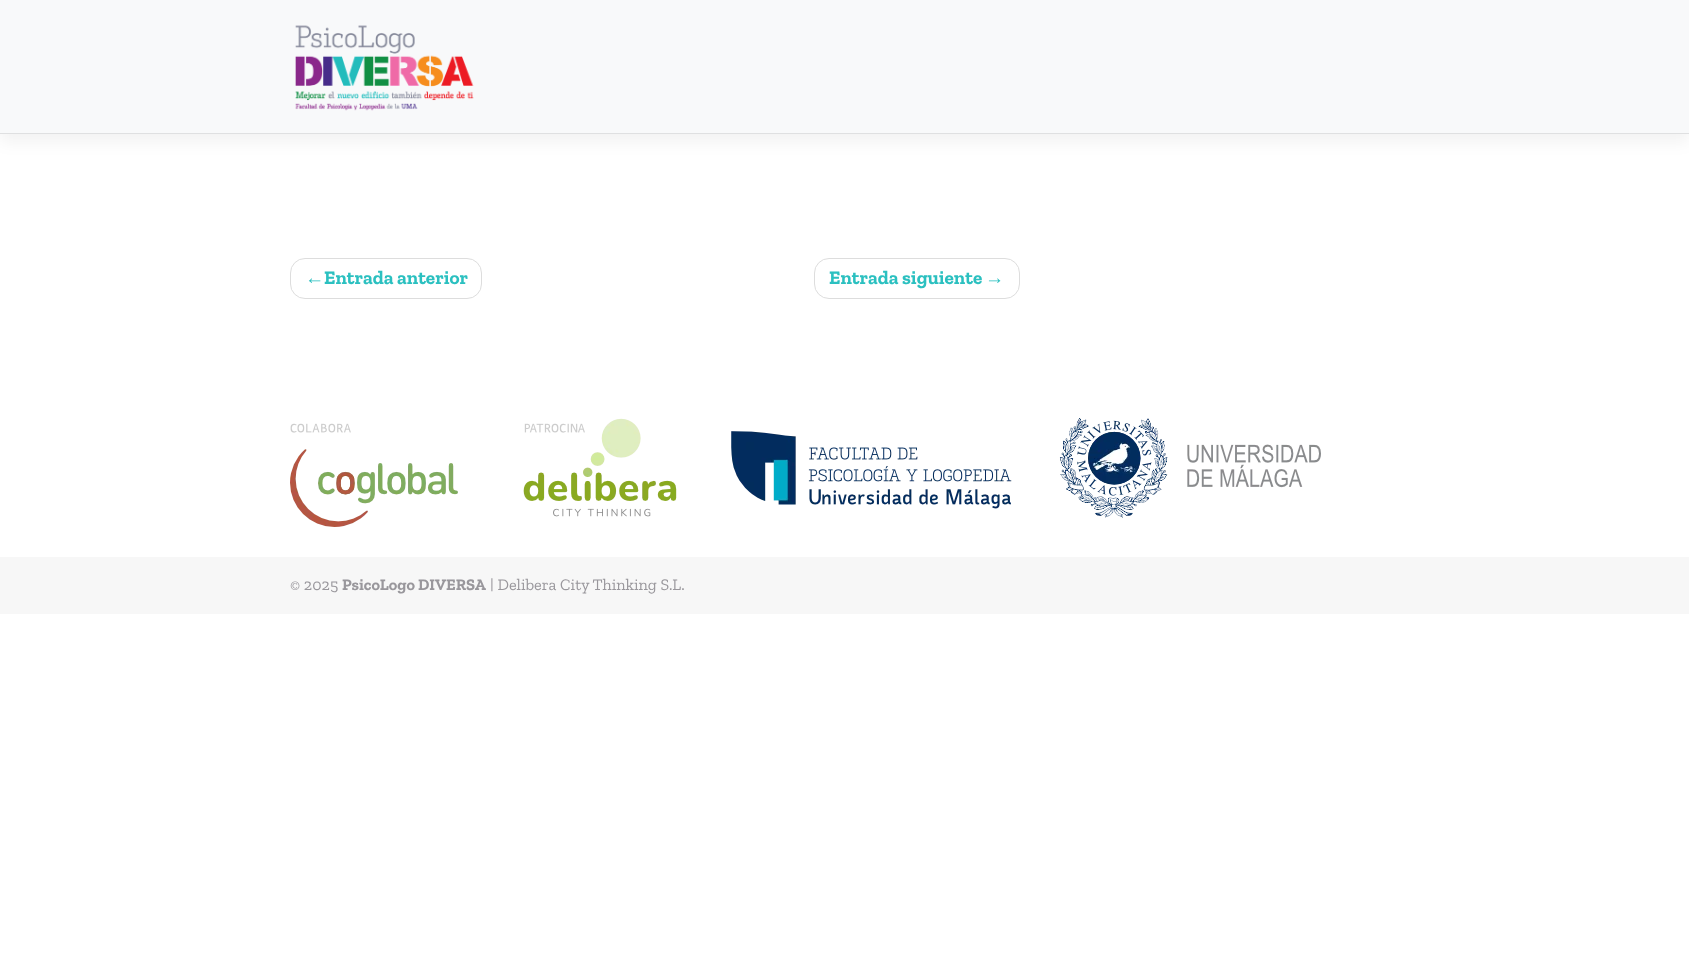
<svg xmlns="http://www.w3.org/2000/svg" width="1689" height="954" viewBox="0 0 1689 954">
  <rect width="100%" height="100%" fill="#fff"/>
  <path d="M0 8h1689v134H0z" fill="#0000000d" filter="blur(8px)"/>
  <path d="M0 0h1689v133H0z" fill="#f8f9fa"/>
  <path d="M0 133h1689v1H0z" fill="#dfe0e1"/>
  <image x="295" y="25" width="179" height="86" href="img/1.png"/>
  <rect x="290.5" y="258.5" width="191" height="40" rx="14.5" fill="none" stroke="#ddd"/>
  <rect x="814.5" y="258.5" width="205" height="40" rx="14.5" fill="none" stroke="#ddd"/>
  <image x="290" y="418" width="1031" height="109" href="img/2.png"/>
  <path d="M0 557h1689v57H0z" fill="#f7f7f7"/>
  <text x="305" y="284" font-family="Liberation Serif" font-size="19.25" font-weight="bold" fill="#2bc0c0">←</text>
  <g font-family="Zilla Slab" font-size="19.25" font-weight="bold" fill="#2bc0c0">
    <text x="324" y="284">Entrada anterior</text>
    <text x="829" y="284">Entrada siguiente</text>
  </g>
  <text x="985" y="284" font-family="Liberation Serif" font-size="19.25" font-weight="bold" fill="#2bc0c0">→</text>
  <text x="290" y="590" font-family="Zilla Slab" font-size="16.25" fill="#99979c">© 2025</text>
  <text x="342" y="590" font-family="Zilla Slab" font-size="16.25" font-weight="bold" fill="#99979c">PsicoLogo DIVERSA</text>
  <text x="490" y="590" font-family="Zilla Slab" font-size="16.25" fill="#99979c">| Delibera City Thinking S.L.</text>
</svg>
